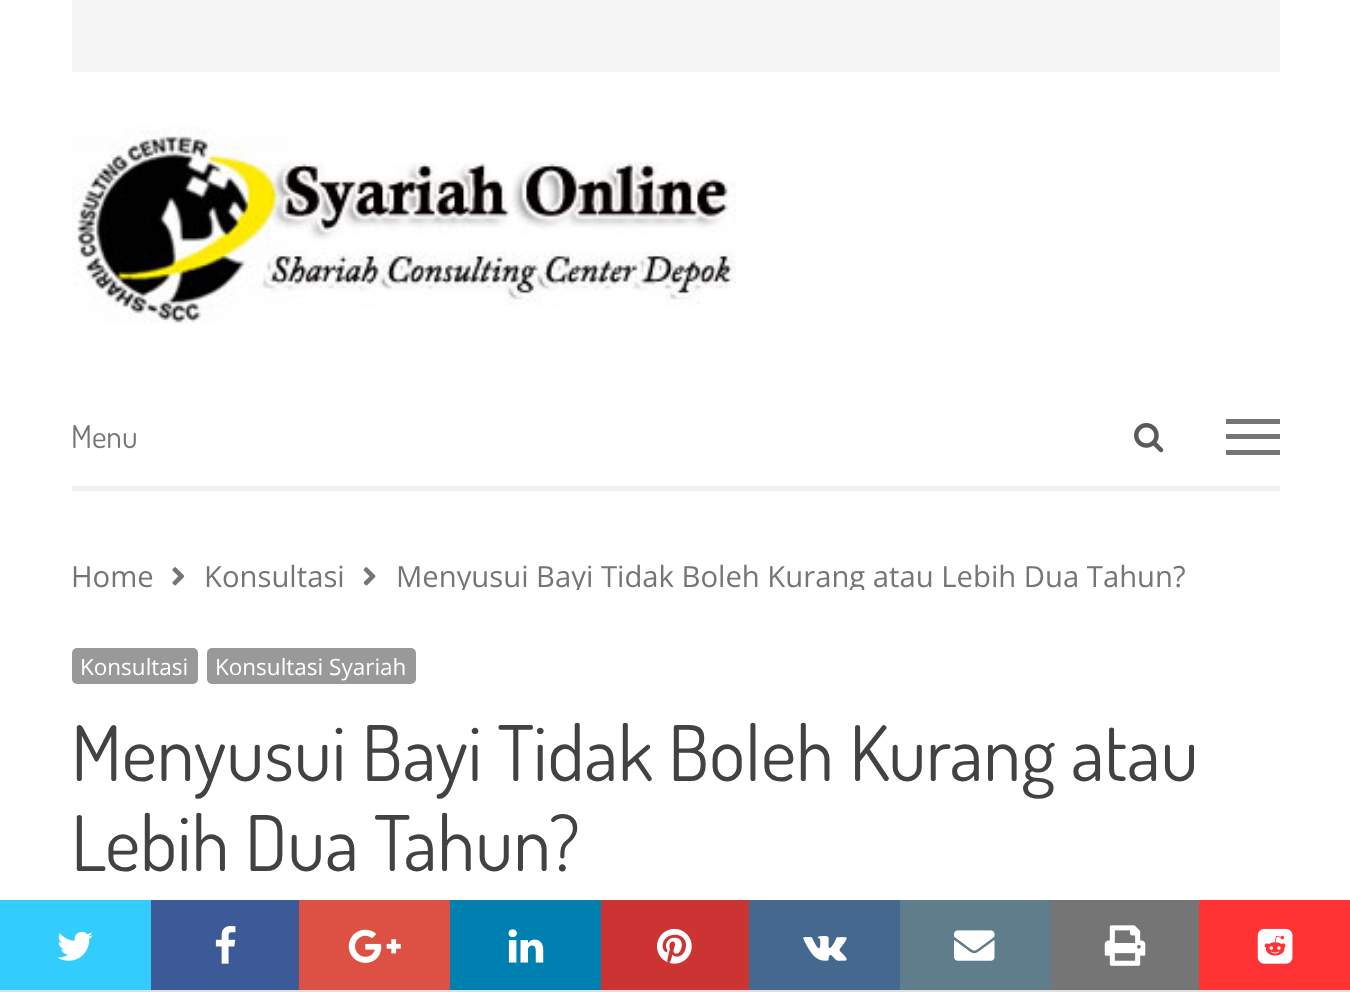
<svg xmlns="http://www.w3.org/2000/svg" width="1350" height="992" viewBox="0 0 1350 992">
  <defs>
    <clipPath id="clip1"><path d="M72 545h1208v45H72z"/></clipPath>
  </defs>
  <rect width="100%" height="100%" fill="#fff"/>
  <path d="M72 0h1208v72H72z" fill="#f5f5f5"/>
  <image x="72" y="126" width="664" height="198" href="img/1.png"/>
  <path d="M72 486h1208v5H72z" fill="#f0f0f0"/>
  <path d="M1226 419h54v5H1226z" fill="#757575"/>
  <path d="M1226 434h54v5H1226z" fill="#757575"/>
  <path d="M1226 450h54v5H1226z" fill="#757575"/>
  <image x="1134" y="423" width="30" height="30" href="img/2.png"/>
  <image x="172" y="567" width="13" height="19" href="img/3.png"/>
  <image x="363" y="567" width="13" height="19" href="img/4.png"/>
  <rect x="72" y="648" width="126" height="36" rx="5" fill="#999"/>
  <rect x="207" y="648" width="209" height="36" rx="5" fill="#999"/>
  <path d="M0 990h1350v2H0z" fill="#e0e0e0"/>
  <path d="M0 900h151v90H0z" fill="#3cf"/>
  <image x="57" y="931" width="36" height="30" href="img/5.png"/>
  <path d="M151 900h148v90H151z" fill="#3c5a98"/>
  <image x="215" y="926" width="21" height="38" href="img/6.png"/>
  <path d="M299 900h151v90H299z" fill="#dd5044"/>
  <image x="348" y="929" width="53" height="34" href="img/7.png"/>
  <path d="M450 900h151v90H450z" fill="#007fb1"/>
  <image x="508" y="929" width="36" height="34" href="img/8.png"/>
  <path d="M601 900h148v90H601z" fill="#c33"/>
  <image x="657" y="928" width="35" height="36" href="img/9.png"/>
  <path d="M749 900h151v90H749z" fill="#45688e"/>
  <image x="803" y="936" width="44" height="25" href="img/10.png"/>
  <path d="M900 900h151v90H900z" fill="#607d8b"/>
  <image x="954" y="930" width="41" height="31" href="img/11.png"/>
  <path d="M1051 900h148v90H1051z" fill="#757575"/>
  <image x="1104" y="925" width="42" height="41" href="img/12.png"/>
  <path d="M1199 900h151v90H1199z" fill="#f33"/>
  <image x="1257" y="928" width="36" height="36" href="img/13.png"/>
  <text x="71" y="448" font-family="Dosis" font-size="31.5" fill="#757575">Menu</text>
  <g font-family="Open Sans" font-size="29.25" fill="#757575">
    <text x="71" y="587">Home</text>
    <text x="204" y="587">Konsultasi</text>
  </g>
  <g clip-path="url(#clip1)">
    <text x="396" y="587" font-family="Open Sans" font-size="29.25" fill="#757575">Menyusui Bayi Tidak Boleh Kurang atau Lebih Dua Tahun?</text>
  </g>
  <g font-family="Open Sans" font-size="22.5" fill="#fff">
    <text x="80" y="675">Konsultasi</text>
    <text x="215" y="675">Konsultasi Syariah</text>
  </g>
  <g font-family="Dosis" font-size="76.5" fill="#424242">
    <text x="71" y="781">Menyusui Bayi Tidak Boleh Kurang atau</text>
    <text x="71" y="871">Lebih Dua Tahun?</text>
  </g>
</svg>
